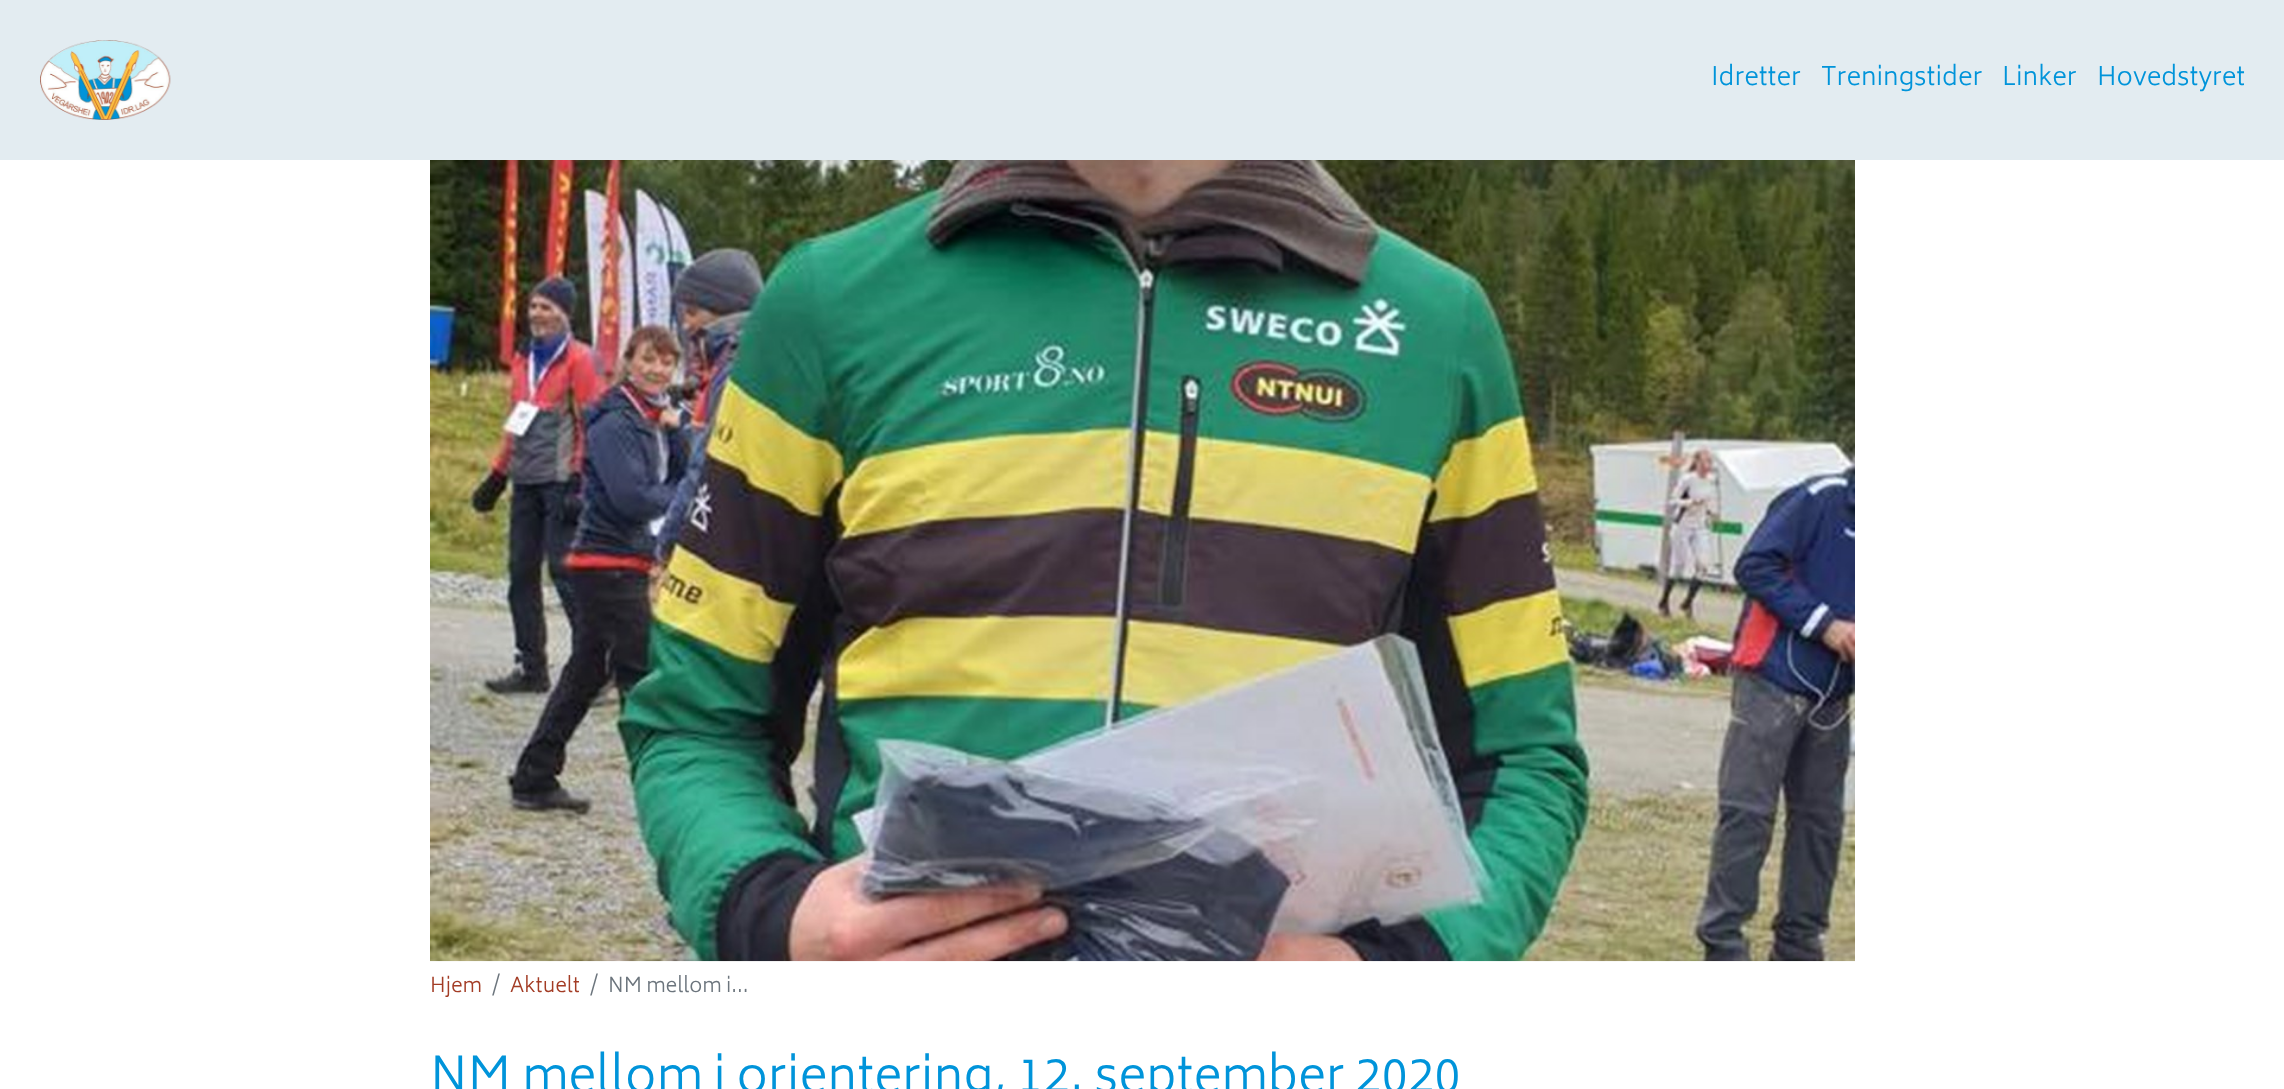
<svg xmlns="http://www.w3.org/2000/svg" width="2284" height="1089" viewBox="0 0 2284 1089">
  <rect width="100%" height="100%" fill="#fff"/>
  <path d="M0 0h2284v160H0z" fill="#e3ecf1"/>
  <image x="40" y="40" width="131" height="80" href="img/1.png"/>
  <image x="430" y="160" width="1425" height="802" href="img/2.png"/>
  <g font-family="Biryani" font-size="25" font-weight="300" fill="#0094da">
    <text x="1711" y="85">Idretter</text>
    <text x="1821" y="85">Treningstider</text>
    <text x="2002" y="85">Linker</text>
    <text x="2097" y="85">Hovedstyret</text>
  </g>
  <text x="430" y="992" font-family="Biryani" font-size="20" font-weight="300" fill="#a33c25">Hjem</text>
  <text x="492" y="992" font-family="Biryani" font-size="20" font-weight="300" fill="#6c757d">/</text>
  <text x="510" y="992" font-family="Biryani" font-size="20" font-weight="300" fill="#a33c25">Aktuelt</text>
  <g font-family="Biryani" font-size="20" font-weight="300" fill="#6c757d">
    <text x="590" y="992">/</text>
    <text x="608" y="992">NM mellom i...</text>
  </g>
  <text x="430" y="1092" font-family="Biryani" font-size="48" font-weight="300" fill="#0094da">NM mellom i orientering, 12. september 2020</text>
</svg>
